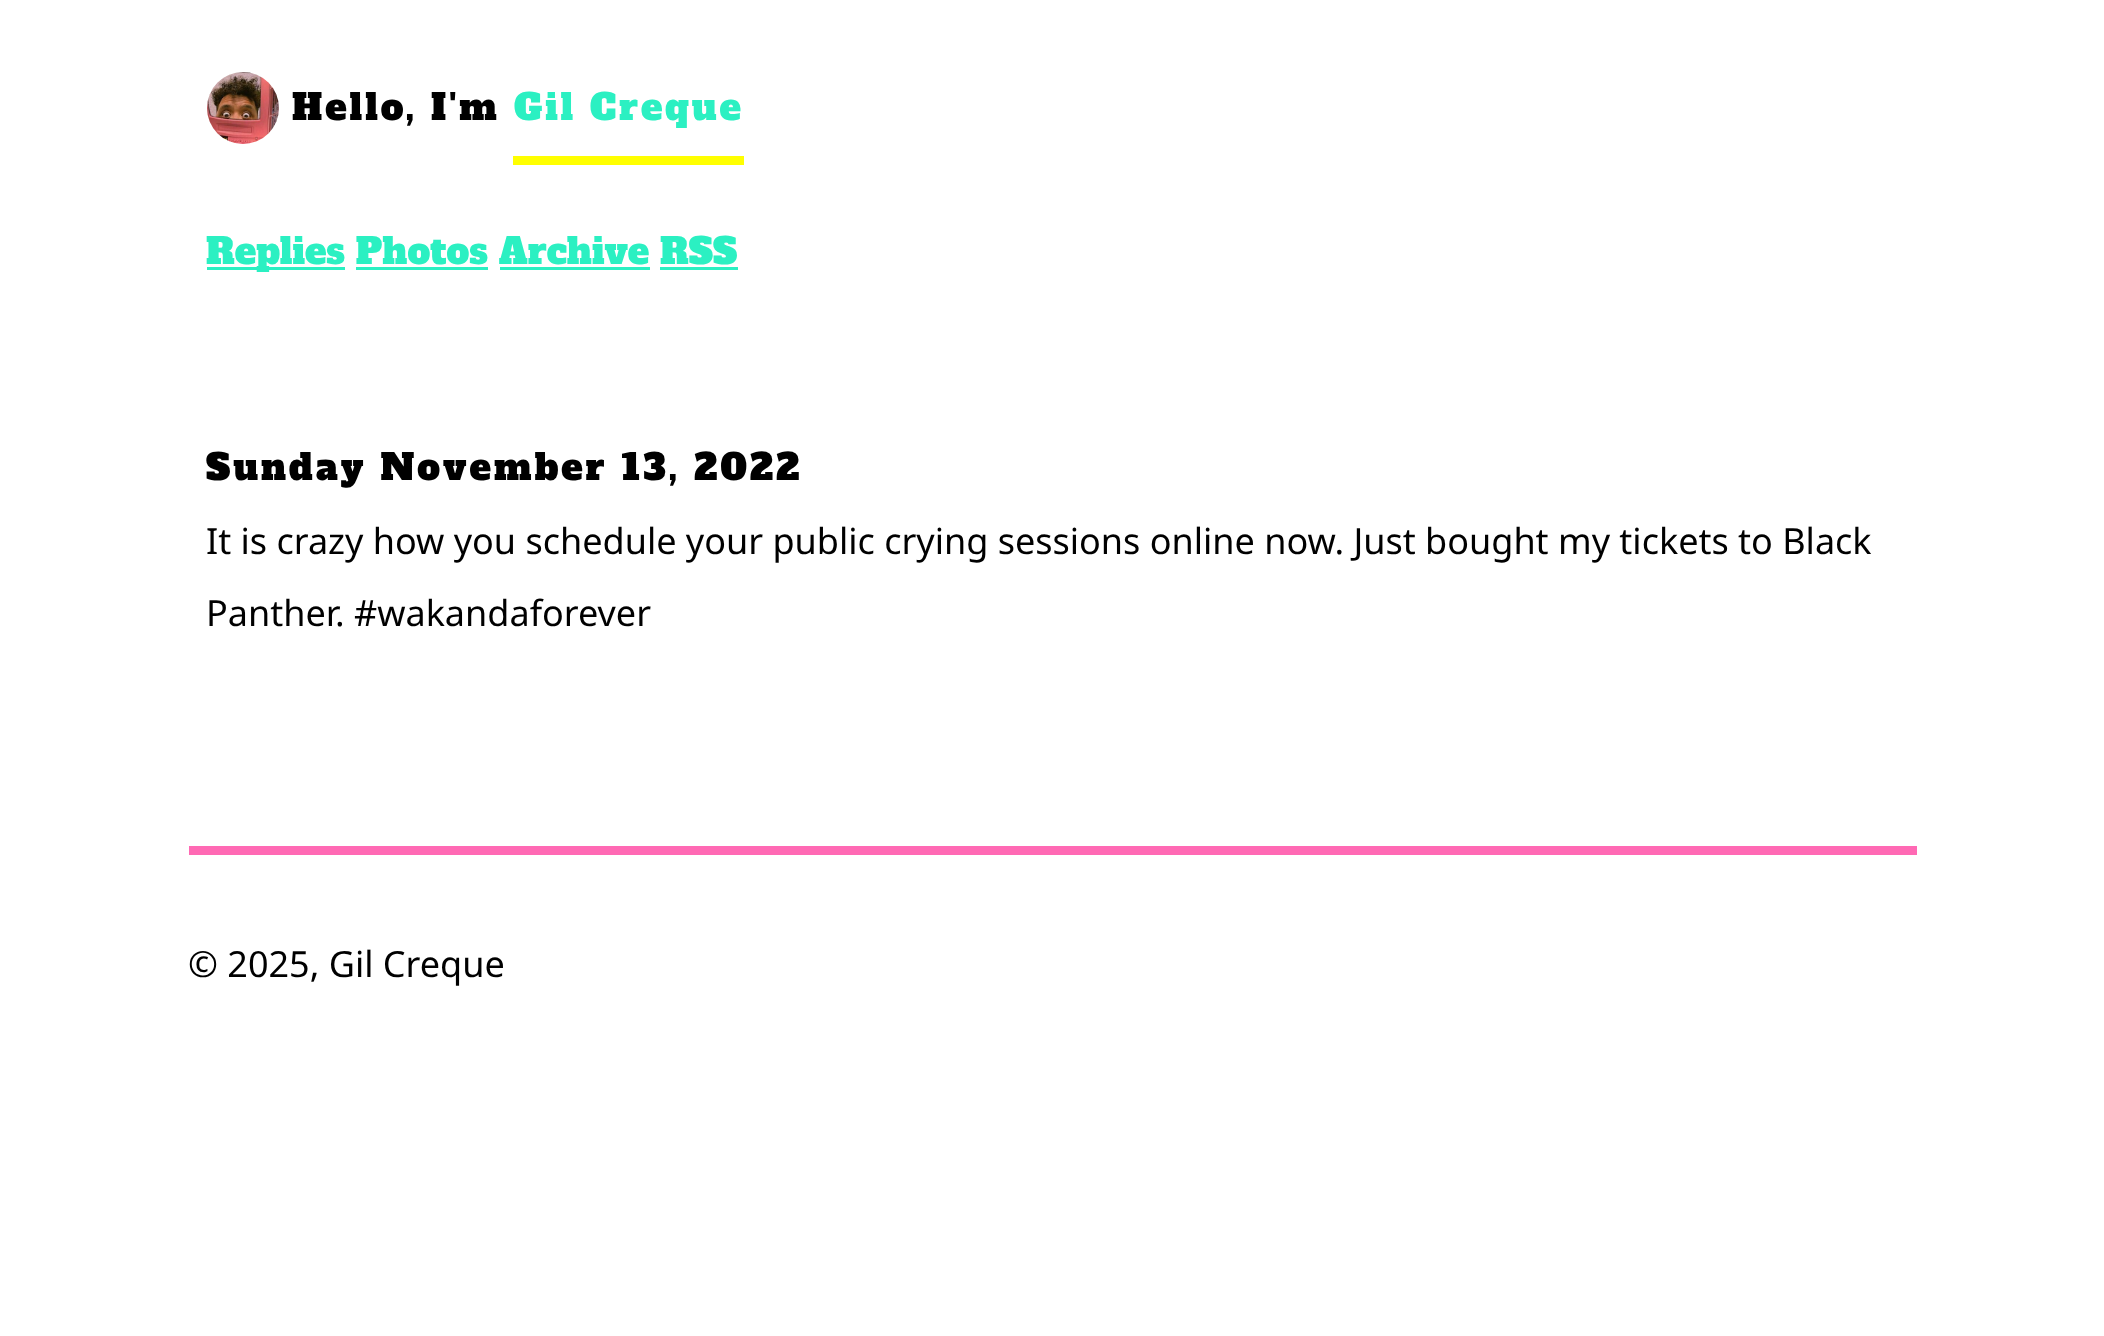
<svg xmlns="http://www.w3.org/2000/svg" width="2104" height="1336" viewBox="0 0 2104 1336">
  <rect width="100%" height="100%" fill="#fff"/>
  <image x="207" y="72" width="72" height="72" href="img/1.png"/>
  <path d="M513 156h231v9H513z" fill="#ff0"/>
  <path d="M207 267h138v3H207z" fill="#2bf0c2"/>
  <path d="M356 267h132v3H356z" fill="#2bf0c2"/>
  <path d="M500 267h150v3H500z" fill="#2bf0c2"/>
  <path d="M660 267h78v3H660z" fill="#2bf0c2"/>
  <path d="M189 846h1728v9H189z" fill="#ff69b4"/>
  <text x="292" y="120" font-family="Alfa Slab One" font-size="36" letter-spacing="3" fill="#000">Hello, I'm</text>
  <text x="514" y="120" font-family="Alfa Slab One" font-size="36" letter-spacing="3" fill="#2bf0c2">Gil Creque</text>
  <text x="206" y="264" font-family="Alfa Slab One" font-size="36" fill="#2bf0c2">Replies Photos Archive RSS</text>
  <text x="206" y="480" font-family="Alfa Slab One" font-size="36" letter-spacing="3" fill="#000">Sunday November 13, 2022</text>
  <g font-family="Noto Sans" font-size="36" fill="#000">
    <text x="206" y="554">It is crazy how you schedule your public crying sessions online now. Just bought my tickets to Black</text>
    <text x="206" y="626">Panther. #wakandaforever</text>
    <text x="188" y="977">© 2025, Gil Creque</text>
  </g>
</svg>
